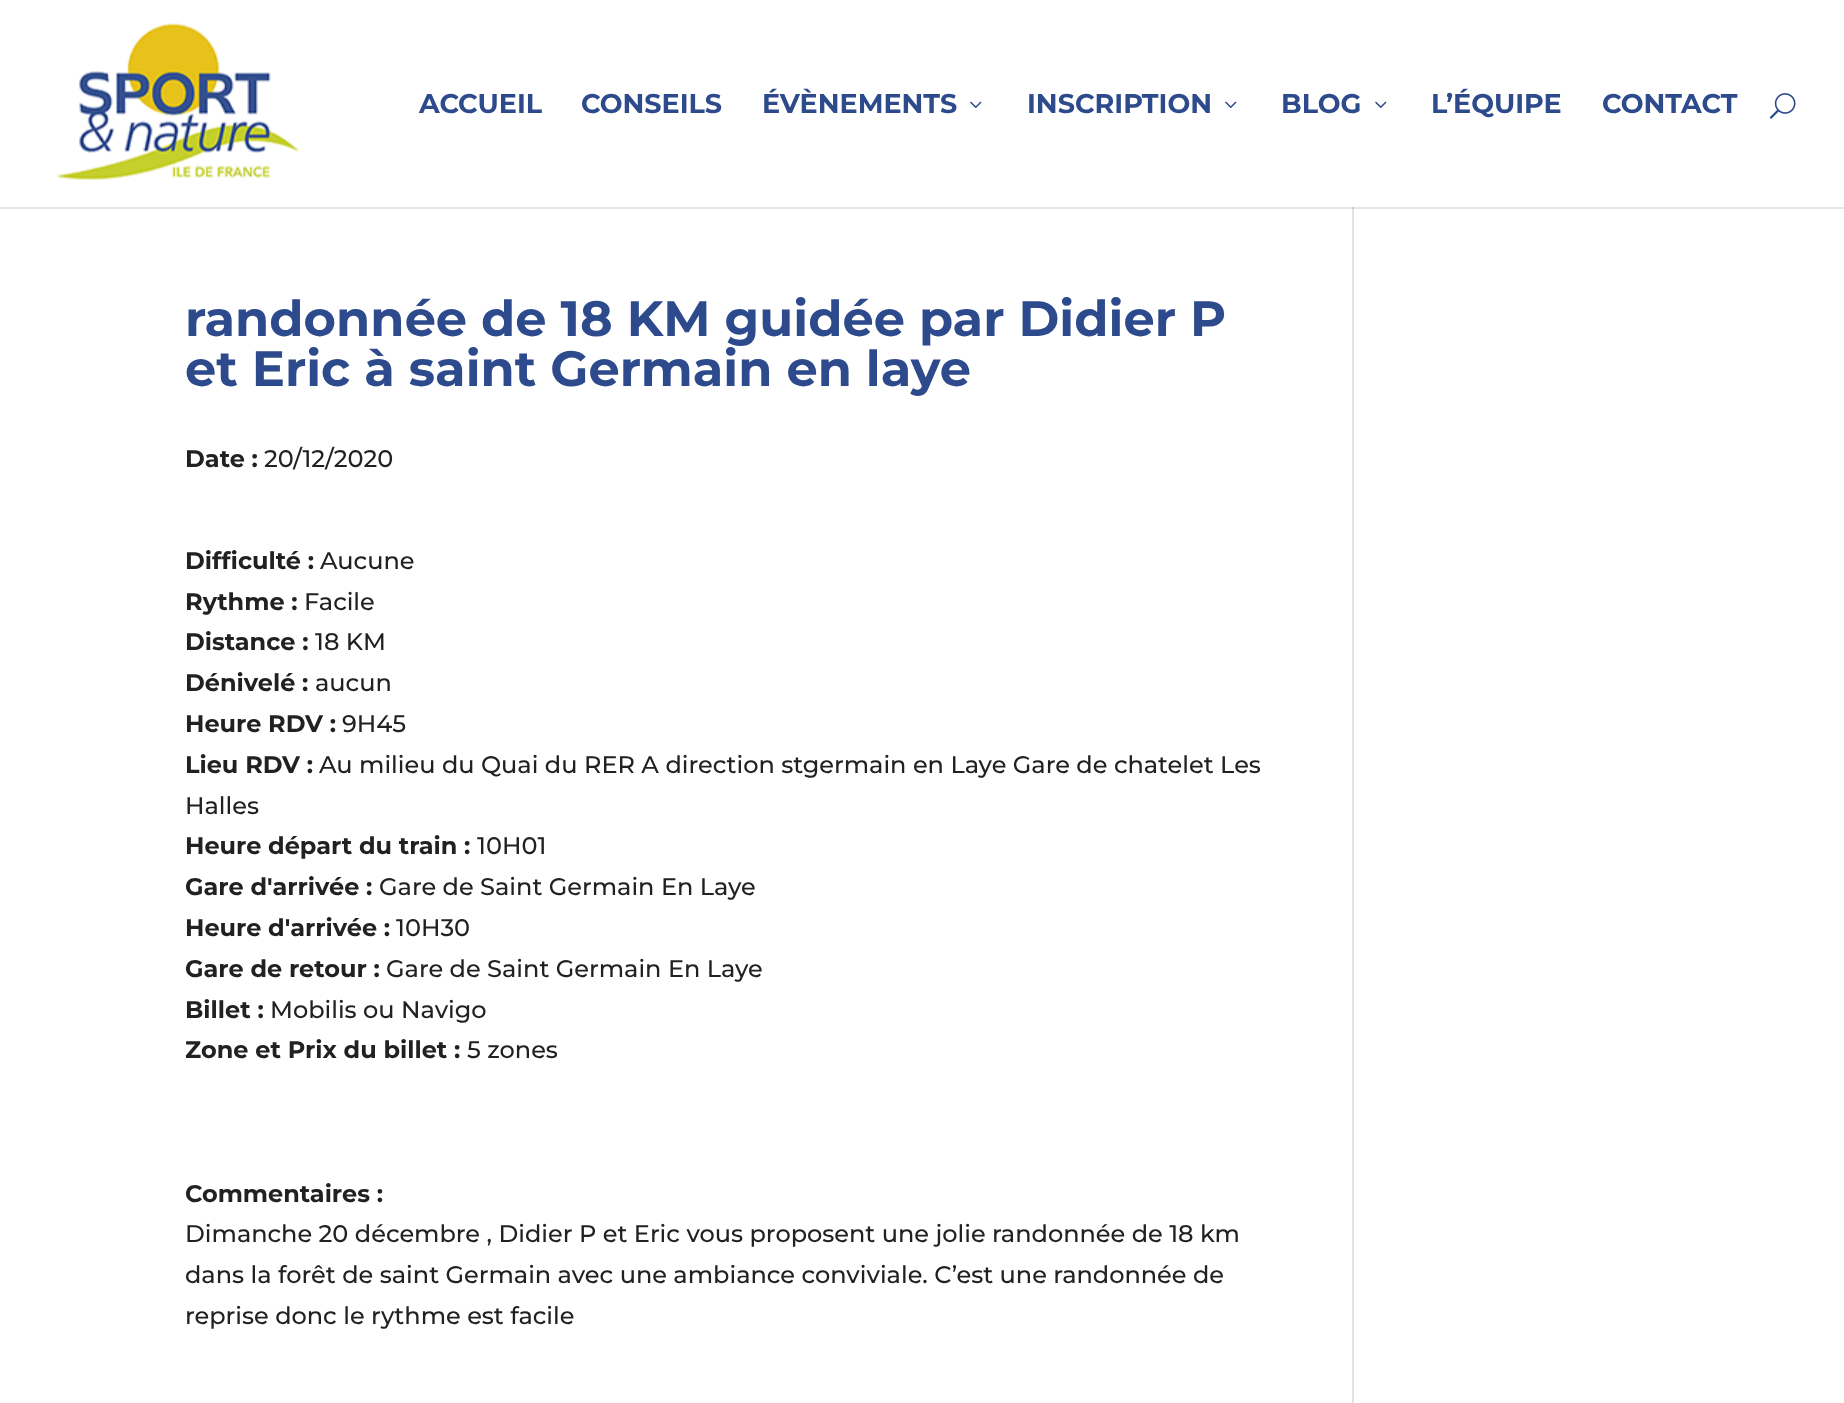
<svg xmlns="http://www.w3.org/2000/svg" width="1844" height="1403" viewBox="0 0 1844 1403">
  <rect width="100%" height="100%" fill="#fff"/>
  <path d="M0 207h1844v2H0z" fill="#e6e6e6"/>
  <image x="56" y="23" width="243" height="157" href="img/1.png"/>
  <image x="970" y="101" width="12" height="7" href="img/2.png"/>
  <image x="1225" y="101" width="12" height="7" href="img/2.png"/>
  <image x="1375" y="101" width="12" height="7" href="img/2.png"/>
  <image x="1769" y="93" width="27" height="26" href="img/3.png"/>
  <path d="M1352 207h2v1196H1352z" fill="#e2e2e2"/>
  <path d="M1352 207h2v2H1352z" fill="#cbcbcb"/>
  <g font-family="Montserrat" font-size="27" font-weight="bold" fill="#2d4a8c">
    <text x="419" y="113">ACCUEIL</text>
    <text x="581" y="113">CONSEILS</text>
    <text x="762" y="113">ÉVÈNEMENTS</text>
    <text x="1027" y="113">INSCRIPTION</text>
    <text x="1281" y="113">BLOG</text>
    <text x="1431" y="113">L’ÉQUIPE</text>
    <text x="1602" y="113">CONTACT</text>
  </g>
  <g font-family="Montserrat" font-size="49.5" font-weight="bold" fill="#2d4a8c">
    <text x="185" y="336">randonnée de 18 KM guidée par Didier P</text>
    <text x="185" y="386">et Eric à saint Germain en laye</text>
  </g>
  <text x="185" y="467" font-family="Montserrat" font-size="24" font-weight="bold" fill="#212121">Date :</text>
  <text x="264" y="467" font-family="Montserrat" font-size="24" font-weight="500" fill="#212121">20/12/2020</text>
  <text x="185" y="569" font-family="Montserrat" font-size="24" font-weight="bold" fill="#212121">Difficulté :</text>
  <text x="320" y="569" font-family="Montserrat" font-size="24" font-weight="500" fill="#212121">Aucune</text>
  <text x="185" y="610" font-family="Montserrat" font-size="24" font-weight="bold" fill="#212121">Rythme :</text>
  <text x="304" y="610" font-family="Montserrat" font-size="24" font-weight="500" fill="#212121">Facile</text>
  <text x="185" y="650" font-family="Montserrat" font-size="24" font-weight="bold" fill="#212121">Distance :</text>
  <text x="315" y="650" font-family="Montserrat" font-size="24" font-weight="500" fill="#212121">18 KM</text>
  <text x="185" y="691" font-family="Montserrat" font-size="24" font-weight="bold" fill="#212121">Dénivelé :</text>
  <text x="315" y="691" font-family="Montserrat" font-size="24" font-weight="500" fill="#212121">aucun</text>
  <text x="185" y="732" font-family="Montserrat" font-size="24" font-weight="bold" fill="#212121">Heure RDV :</text>
  <text x="342" y="732" font-family="Montserrat" font-size="24" font-weight="500" fill="#212121">9H45</text>
  <text x="185" y="773" font-family="Montserrat" font-size="24" font-weight="bold" fill="#212121">Lieu RDV :</text>
  <g font-family="Montserrat" font-size="24" font-weight="500" fill="#212121">
    <text x="319" y="773">Au milieu du Quai du RER A direction stgermain en Laye Gare de chatelet Les</text>
    <text x="185" y="814">Halles</text>
  </g>
  <text x="185" y="854" font-family="Montserrat" font-size="24" font-weight="bold" fill="#212121">Heure départ du train :</text>
  <text x="477" y="854" font-family="Montserrat" font-size="24" font-weight="500" fill="#212121">10H01</text>
  <text x="185" y="895" font-family="Montserrat" font-size="24" font-weight="bold" fill="#212121">Gare d'arrivée :</text>
  <text x="379" y="895" font-family="Montserrat" font-size="24" font-weight="500" fill="#212121">Gare de Saint Germain En Laye</text>
  <text x="185" y="936" font-family="Montserrat" font-size="24" font-weight="bold" fill="#212121">Heure d'arrivée :</text>
  <text x="396" y="936" font-family="Montserrat" font-size="24" font-weight="500" fill="#212121">10H30</text>
  <text x="185" y="977" font-family="Montserrat" font-size="24" font-weight="bold" fill="#212121">Gare de retour :</text>
  <text x="386" y="977" font-family="Montserrat" font-size="24" font-weight="500" fill="#212121">Gare de Saint Germain En Laye</text>
  <text x="185" y="1018" font-family="Montserrat" font-size="24" font-weight="bold" fill="#212121">Billet :</text>
  <text x="270" y="1018" font-family="Montserrat" font-size="24" font-weight="500" fill="#212121">Mobilis ou Navigo</text>
  <text x="185" y="1058" font-family="Montserrat" font-size="24" font-weight="bold" fill="#212121">Zone et Prix du billet :</text>
  <text x="467" y="1058" font-family="Montserrat" font-size="24" font-weight="500" fill="#212121">5 zones</text>
  <text x="185" y="1202" font-family="Montserrat" font-size="24" font-weight="bold" fill="#212121">Commentaires :</text>
  <g font-family="Montserrat" font-size="24" font-weight="500" fill="#212121">
    <text x="185" y="1242">Dimanche 20 décembre , Didier P et Eric vous proposent une jolie randonnée de 18 km</text>
    <text x="185" y="1283">dans la forêt de saint Germain avec une ambiance conviviale. C’est une randonnée de</text>
    <text x="185" y="1324">reprise donc le rythme est facile</text>
  </g>
</svg>
